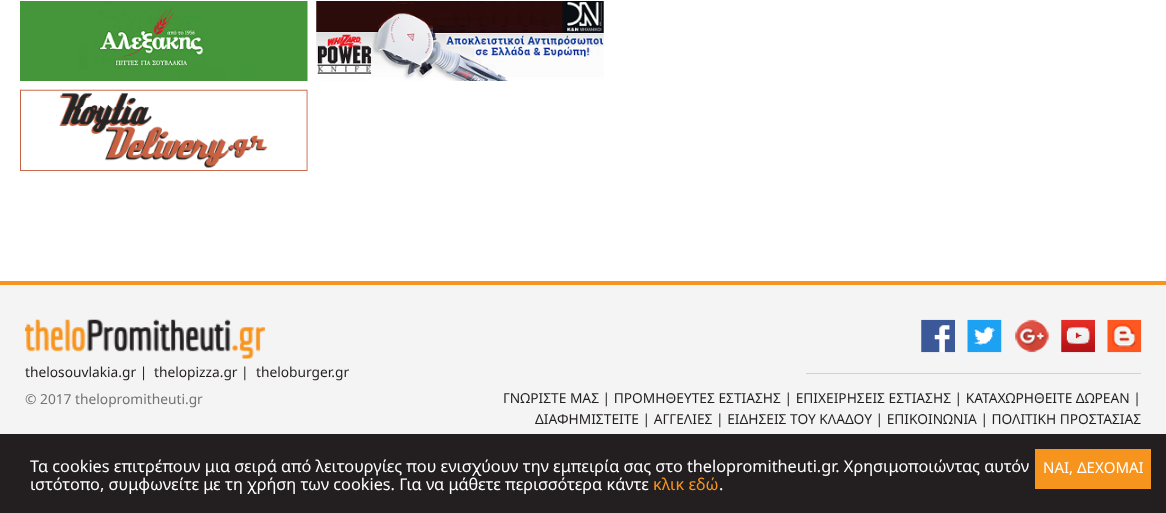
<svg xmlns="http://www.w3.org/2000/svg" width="1166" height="513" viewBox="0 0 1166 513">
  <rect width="100%" height="100%" fill="#fff"/>
  <image x="20" y="1" width="288" height="80" href="img/1.png"/>
  <image x="316" y="1" width="288" height="80" href="img/2.png"/>
  <image x="20" y="89" width="288" height="82" href="img/3.png"/>
  <path d="M0 285h1166v149H0z" fill="#f4f4f4"/>
  <path d="M0 281h1166v4H0z" fill="#f7941d"/>
  <image x="25" y="319" width="240" height="40" href="img/4.png"/>
  <image x="921" y="319" width="34" height="34" href="img/5.png"/>
  <image x="967" y="319" width="35" height="34" href="img/6.png"/>
  <image x="1015" y="319" width="34" height="34" href="img/7.png"/>
  <image x="1061" y="319" width="34" height="34" href="img/8.png"/>
  <image x="1107" y="319" width="35" height="34" href="img/9.png"/>
  <path d="M806 373h335v1H806z" fill="#d2d2d2"/>
  <path d="M0 434h1166v79H0z" fill="#231f20"/>
  <path d="M1035 449h116v40H1035z" fill="#f7941d"/>
  <g font-family="Noto Sans" font-size="13.75" fill="#231f20">
    <text x="25" y="377">thelosouvlakia.gr |</text>
    <text x="154" y="377">thelopizza.gr |</text>
    <text x="256" y="377">theloburger.gr</text>
  </g>
  <text x="25" y="404" font-family="Noto Sans" font-size="13.75" fill="#737373">© 2017 thelopromitheuti.gr</text>
  <g font-family="Noto Sans" font-size="13.75" fill="#231f20">
    <text x="503" y="403">ΓΝΩΡΙΣΤΕ ΜΑΣ | ΠΡΟΜΗΘΕΥΤΕΣ ΕΣΤΙΑΣΗΣ | ΕΠΙΧΕΙΡΗΣΕΙΣ ΕΣΤΙΑΣΗΣ | ΚΑΤΑΧΩΡΗΘΕΙΤΕ ΔΩΡΕΑΝ |</text>
    <text x="535" y="424">ΔΙΑΦΗΜΙΣΤΕΙΤΕ | ΑΓΓΕΛΙΕΣ | ΕΙΔΗΣΕΙΣ ΤΟΥ ΚΛΑΔΟΥ | ΕΠΙΚΟΙΝΩΝΙΑ | ΠΟΛΙΤΙΚΗ ΠΡΟΣΤΑΣΙΑΣ</text>
  </g>
  <g font-family="Noto Sans" font-size="16.25" fill="#fff">
    <text x="30" y="472">Τα cookies επιτρέπουν μια σειρά από λειτουργίες που ενισχύουν την εμπειρία σας στο thelopromitheuti.gr. Χρησιμοποιώντας αυτόν</text>
    <text x="30" y="490">ιστότοπο, συμφωνείτε με τη χρήση των cookies. Για να μάθετε περισσότερα κάντε</text>
  </g>
  <text x="653" y="490" font-family="Noto Sans" font-size="16.25" fill="#f7941d">κλικ εδώ</text>
  <text x="719" y="490" font-family="Noto Sans" font-size="16.25" fill="#fff">.</text>
  <text x="1043" y="473" font-family="Noto Sans" font-size="15" fill="#fff">ΝΑΙ, ΔΕΧΟΜΑΙ</text>
</svg>
